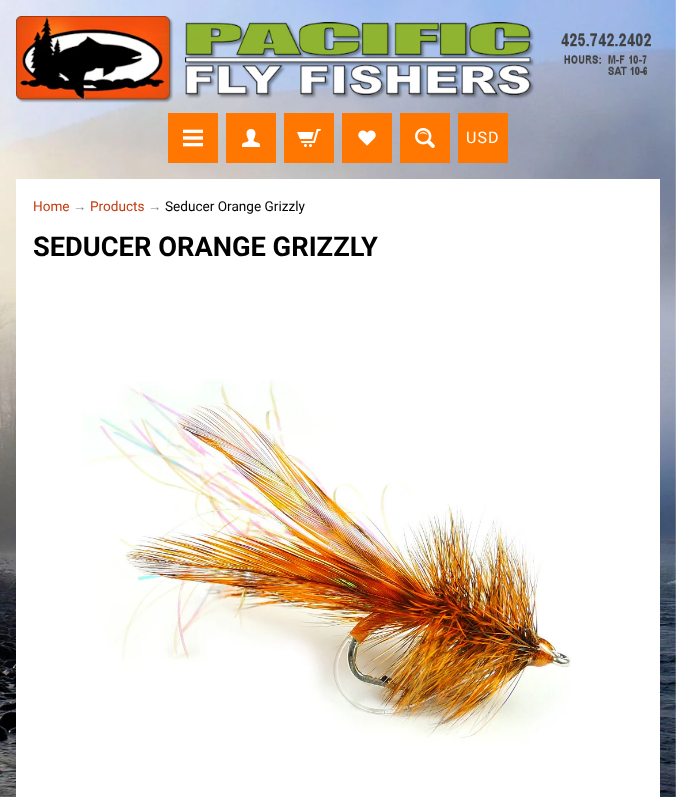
<svg xmlns="http://www.w3.org/2000/svg" width="676" height="797" viewBox="0 0 676 797">
  <rect width="100%" height="100%" fill="#fff"/>
  <image x="0" y="0" width="676" height="797" href="img/1.png"/>
  <image x="16" y="16" width="635" height="87" href="img/2.png"/>
  <path d="M168 113h50v50H168z" fill="#f70"/>
  <image x="183" y="129" width="20" height="18" href="img/3.png"/>
  <path d="M226 113h50v50H226z" fill="#f70"/>
  <image x="242" y="129" width="18" height="18" href="img/4.png"/>
  <path d="M284 113h50v50H284z" fill="#f70"/>
  <image x="297" y="129" width="24" height="18" href="img/5.png"/>
  <path d="M342 113h50v50H342z" fill="#f70"/>
  <image x="358" y="130" width="18" height="16" href="img/6.png"/>
  <path d="M400 113h50v50H400z" fill="#f70"/>
  <image x="415" y="128" width="20" height="20" href="img/7.png"/>
  <path d="M458 113h50v50H458z" fill="#f70"/>
  <path d="M16 179h644v618H16z" fill="#fff"/>
  <image x="82" y="379" width="489" height="364" href="img/8.png"/>
  <text x="466" y="143" font-family="Roboto" font-size="16" letter-spacing="1" fill="#fff">USD</text>
  <text x="33" y="211" font-family="Roboto" font-size="13.6" fill="#c33a0e">Home</text>
  <text x="73" y="211" font-family="Liberation Sans" font-size="13.6" fill="#808080">→</text>
  <text x="90" y="211" font-family="Roboto" font-size="13.6" fill="#c33a0e">Products</text>
  <text x="148" y="211" font-family="Liberation Sans" font-size="13.6" fill="#808080">→</text>
  <text x="165" y="211" font-family="Roboto" font-size="13.6" fill="#000">Seducer Orange Grizzly</text>
  <text x="33" y="256" font-family="Roboto" font-size="27.25" font-weight="bold" fill="#000">SEDUCER ORANGE GRIZZLY</text>
</svg>
